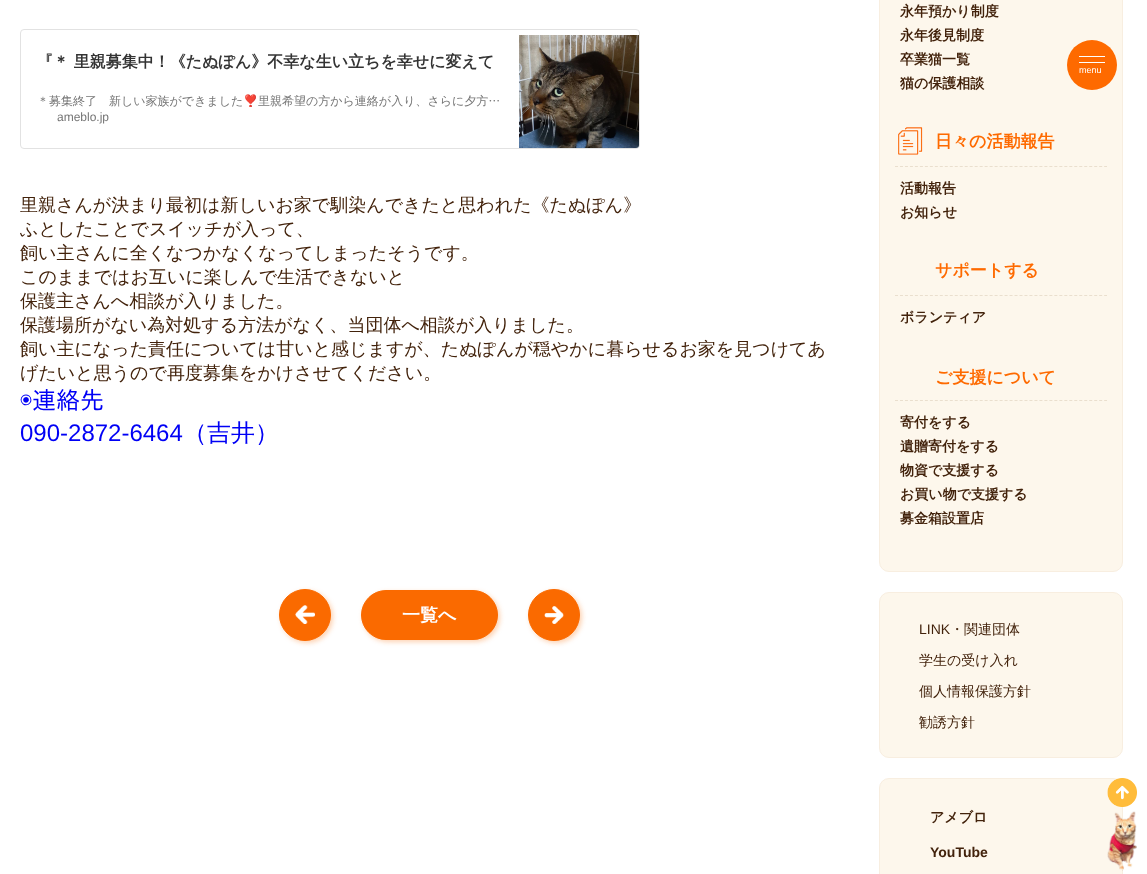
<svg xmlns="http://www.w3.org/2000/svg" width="1147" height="874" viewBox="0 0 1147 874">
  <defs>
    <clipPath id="clip1"><path d="M37 92h466v15H37z"/></clipPath>
  </defs>
  <rect width="100%" height="100%" fill="#fff"/>
  <rect x="20.5" y="29.5" width="619" height="119" rx="3.5" fill="none" stroke="#e2e2e2"/>
  <image x="519" y="35" width="120" height="113" href="img/1.png"/>
  <rect x="281" y="591" width="52" height="52" rx="26" fill="#fa6a004d" filter="blur(2.5px)"/>
  <circle cx="305" cy="615" r="25.5" fill="#fa6a00" stroke="#fa6a00"/>
  <image x="295" y="605" width="20" height="19" href="img/2.png"/>
  <rect x="363" y="592" width="137" height="50" rx="25" fill="#fa6a004d" filter="blur(2.5px)"/>
  <rect x="361.5" y="590.5" width="136" height="49" rx="24.5" fill="#fa6a00" stroke="#fa6a00"/>
  <rect x="530" y="591" width="52" height="52" rx="26" fill="#fa6a004d" filter="blur(2.5px)"/>
  <circle cx="554" cy="615" r="25.5" fill="#fa6a00" stroke="#fa6a00"/>
  <image x="544" y="606" width="20" height="18" href="img/3.png"/>
  <rect x="879.5" y="-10.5" width="243" height="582" rx="9.5" fill="#fdf7ec" stroke="#f8eee0"/>
  <path d="M895 166.5H1107" fill="none" stroke="#eadfce" stroke-dasharray="3 1.98"/>
  <image x="897" y="127" width="26" height="28" href="img/4.png"/>
  <path d="M895 295.5H1107" fill="none" stroke="#eadfce" stroke-dasharray="3 1.98"/>
  <path d="M895 400.5H1107" fill="none" stroke="#eadfce" stroke-dasharray="3 1.98"/>
  <rect x="879.5" y="592.5" width="243" height="165" rx="9.5" fill="#fdf7ec" stroke="#f8eee0"/>
  <rect x="879.5" y="778.5" width="243" height="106" rx="9.5" fill="#fdf7ec" stroke="#f8eee0"/>
  <circle cx="1092" cy="65" r="25" fill="#fe6a00"/>
  <path d="M1079 56h26v1H1079z" fill="#fff"/>
  <path d="M1079 62h26v1H1079z" fill="#fff"/>
  <image x="1107" y="778" width="30" height="29" href="img/5.png"/>
  <image x="1107" y="811" width="30" height="60" href="img/6.png"/>
  <text x="37" y="67" font-family="WenQuanYi Zen Hei" font-size="16" font-weight="bold" fill="#333">『＊ 里親募集中！《たぬぽん》不幸な生い立ちを幸せに変えて</text>
  <text x="37" y="105" font-family="WenQuanYi Zen Hei" font-size="12" font-weight="500" fill="#757575">＊募集終了　新しい家族ができました</text>
  <g clip-path="url(#clip1)">
    <text x="243" y="105" font-family="Noto Color Emoji" font-size="12" fill="#757575">❣️</text>
  </g>
  <text x="258" y="105" font-family="WenQuanYi Zen Hei" font-size="12" font-weight="500" fill="#757575">里親希望の方から連絡が入り、さらに夕方…</text>
  <text x="57" y="121" font-family="Liberation Sans" font-size="12" fill="#757575">ameblo.jp</text>
  <g font-family="WenQuanYi Zen Hei" font-size="18" font-weight="500" fill="#42220b">
    <text x="20" y="211">里親さんが決まり最初は新しいお家で馴染んできたと思われた《たぬぽん》</text>
    <text x="20" y="235">ふとしたことでスイッチが入って、</text>
    <text x="20" y="259">飼い主さんに全くなつかなくなってしまったそうです。</text>
    <text x="20" y="283">このままではお互いに楽しんで生活できないと</text>
    <text x="20" y="307">保護主さんへ相談が入りました。</text>
    <text x="20" y="331">保護場所がない為対処する方法がなく、当団体へ相談が入りました。</text>
    <text x="20" y="355">飼い主になった責任については甘いと感じますが、たぬぽんが穏やかに暮らせるお家を見つけてあ</text>
    <text x="20" y="379">げたいと思うので再度募集をかけさせてください。</text>
  </g>
  <text x="20" y="409" font-family="IPAPGothic" font-size="24" fill="#0000f5">◉連絡先</text>
  <text x="20" y="441" font-family="Liberation Sans" font-size="24" fill="#0000f5">090-2872-6464</text>
  <text x="183" y="441" font-family="WenQuanYi Zen Hei" font-size="24" font-weight="500" fill="#0000f5">（吉井）</text>
  <text x="402" y="621" font-family="WenQuanYi Zen Hei" font-size="18" font-weight="bold" fill="#fff">一覧へ</text>
  <g font-family="WenQuanYi Zen Hei" font-size="14" font-weight="bold" fill="#42220b">
    <text x="900" y="16">永年預かり制度</text>
    <text x="900" y="40">永年後見制度</text>
    <text x="900" y="64">卒業猫一覧</text>
    <text x="900" y="88">猫の保護相談</text>
  </g>
  <text x="935" y="147" font-family="WenQuanYi Zen Hei" font-size="17" font-weight="bold" fill="#fe6a00">日々の活動報告</text>
  <g font-family="WenQuanYi Zen Hei" font-size="14" font-weight="bold" fill="#42220b">
    <text x="900" y="193">活動報告</text>
    <text x="900" y="217">お知らせ</text>
  </g>
  <text x="935" y="276" font-family="WenQuanYi Zen Hei" font-size="17" font-weight="bold" fill="#fe6a00">サポートする</text>
  <text x="900" y="322" font-family="WenQuanYi Zen Hei" font-size="14" font-weight="bold" fill="#42220b">ボランティア</text>
  <text x="935" y="383" font-family="WenQuanYi Zen Hei" font-size="17" font-weight="bold" fill="#fe6a00">ご支援について</text>
  <g font-family="WenQuanYi Zen Hei" font-size="14" font-weight="bold" fill="#42220b">
    <text x="900" y="427">寄付をする</text>
    <text x="900" y="451">遺贈寄付をする</text>
    <text x="900" y="475">物資で支援する</text>
    <text x="900" y="499">お買い物で支援する</text>
    <text x="900" y="523">募金箱設置店</text>
  </g>
  <text x="919" y="634" font-family="Liberation Sans" font-size="14" fill="#42220b">LINK</text>
  <g font-family="WenQuanYi Zen Hei" font-size="14" font-weight="500" fill="#42220b">
    <text x="950" y="634">・関連団体</text>
    <text x="919" y="665">学生の受け入れ</text>
    <text x="919" y="696">個人情報保護方針</text>
    <text x="919" y="727">勧誘方針</text>
  </g>
  <text x="930" y="822" font-family="WenQuanYi Zen Hei" font-size="14" font-weight="bold" fill="#42220b">アメブロ</text>
  <text x="930" y="857" font-family="Liberation Sans" font-size="14" font-weight="bold" fill="#42220b">YouTube</text>
  <text x="1079" y="73" font-family="Liberation Sans" font-size="9" fill="#fff">menu</text>
</svg>
